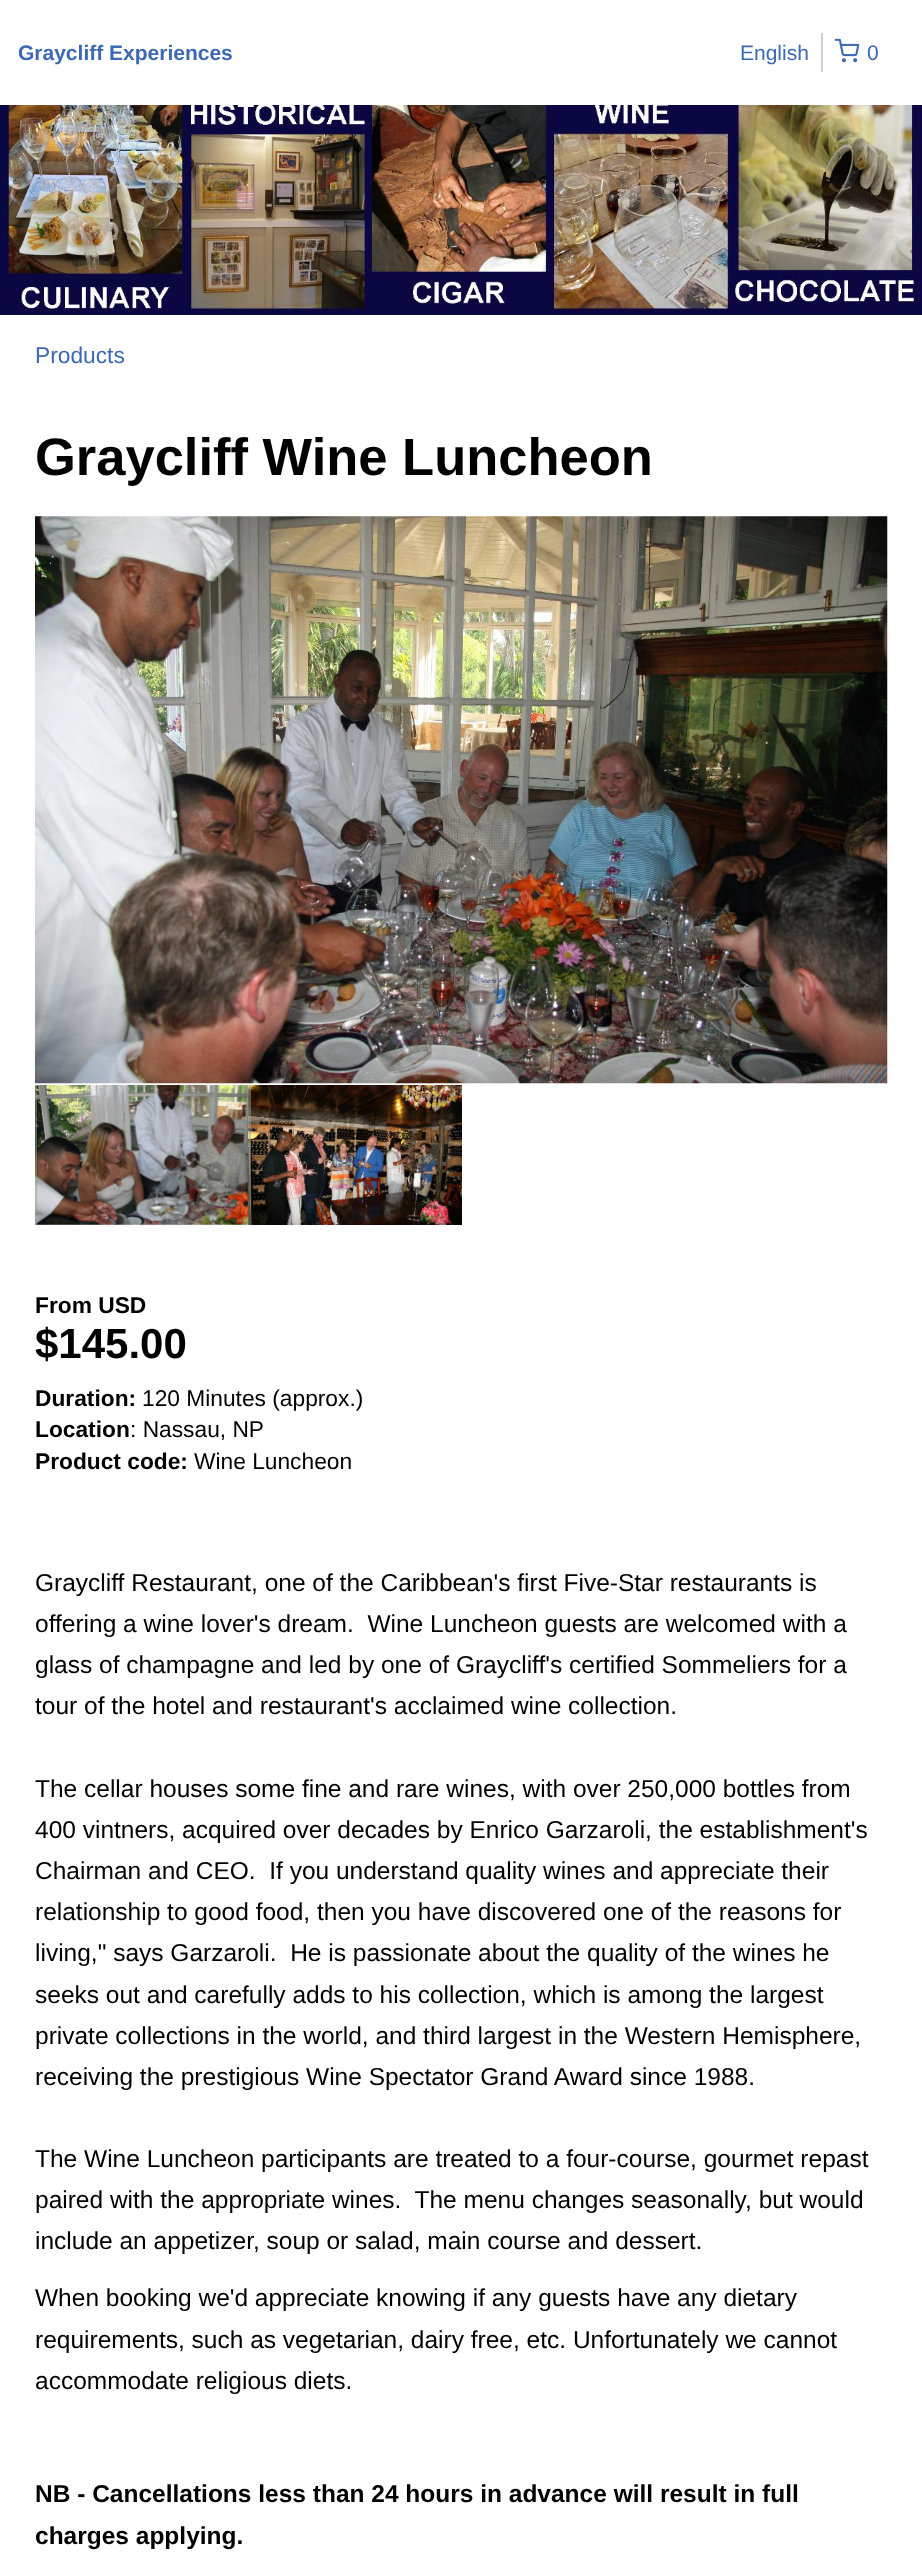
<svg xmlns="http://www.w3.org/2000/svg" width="922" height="2576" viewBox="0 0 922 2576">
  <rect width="100%" height="100%" fill="#fff"/>
  <path d="M821 33h2v39H821z" fill="#ccd1ca"/>
  <image x="834" y="38" width="26" height="25" href="img/1.png"/>
  <image x="0" y="105" width="922" height="210" href="img/2.png"/>
  <image x="35" y="516" width="853" height="568" href="img/3.png"/>
  <image x="35" y="1085" width="214" height="140" href="img/4.png"/>
  <path d="M35 1085h2v140H35z" fill="#98a39480"/>
  <image x="248" y="1085" width="214" height="140" href="img/5.png"/>
  <path d="M249 1085h2v140H249z" fill="#98a39480"/>
  <text x="18" y="60" font-family="Liberation Sans" font-size="21" font-weight="bold" fill="#3c68b4">Graycliff Experiences</text>
  <g font-family="Liberation Sans" font-size="21" fill="#3c68b4">
    <text x="740" y="60">English</text>
    <text x="867" y="60">0</text>
  </g>
  <text x="35" y="363" font-family="Liberation Sans" font-size="22.75" fill="#3c68b4">Products</text>
  <text x="35" y="475" font-family="Liberation Sans" font-size="52.5" font-weight="bold" fill="#000">Graycliff Wine Luncheon</text>
  <text x="35" y="1313" font-family="Liberation Sans" font-size="22.75" font-weight="bold" fill="#000">From USD</text>
  <text x="35" y="1358" font-family="Liberation Sans" font-size="42" font-weight="bold" fill="#000">$145.00</text>
  <text x="35" y="1406" font-family="Liberation Sans" font-size="22.75" font-weight="bold" fill="#000">Duration:</text>
  <text x="142" y="1406" font-family="Liberation Sans" font-size="22.75" fill="#000">120 Minutes (approx.)</text>
  <text x="35" y="1437" font-family="Liberation Sans" font-size="22.75" font-weight="bold" fill="#000">Location</text>
  <text x="130" y="1437" font-family="Liberation Sans" font-size="22.75" fill="#000">: Nassau, NP</text>
  <text x="35" y="1469" font-family="Liberation Sans" font-size="22.75" font-weight="bold" fill="#000">Product code:</text>
  <text x="194" y="1469" font-family="Liberation Sans" font-size="22.75" fill="#000">Wine Luncheon</text>
  <g font-family="Liberation Sans" font-size="24.5" fill="#000">
    <text x="35" y="1591">Graycliff Restaurant, one of the Caribbean's first Five-Star restaurants is</text>
    <text x="35" y="1632" xml:space="preserve">offering a wine lover's dream.  Wine Luncheon guests are welcomed with a</text>
    <text x="35" y="1673">glass of champagne and led by one of Graycliff's certified Sommeliers for a</text>
    <text x="35" y="1714">tour of the hotel and restaurant's acclaimed wine collection.</text>
    <text x="35" y="1797">The cellar houses some fine and rare wines, with over 250,000 bottles from</text>
    <text x="35" y="1838">400 vintners, acquired over decades by Enrico Garzaroli, the establishment's</text>
    <text x="35" y="1879" xml:space="preserve">Chairman and CEO.  If you understand quality wines and appreciate their</text>
    <text x="35" y="1920">relationship to good food, then you have discovered one of the reasons for</text>
    <text x="35" y="1961" xml:space="preserve">living," says Garzaroli.  He is passionate about the quality of the wines he</text>
    <text x="35" y="2003">seeks out and carefully adds to his collection, which is among the largest</text>
    <text x="35" y="2044">private collections in the world, and third largest in the Western Hemisphere,</text>
    <text x="35" y="2085">receiving the prestigious Wine Spectator Grand Award since 1988.</text>
    <text x="35" y="2167">The Wine Luncheon participants are treated to a four-course, gourmet repast</text>
    <text x="35" y="2208" xml:space="preserve">paired with the appropriate wines.  The menu changes seasonally, but would</text>
    <text x="35" y="2249">include an appetizer, soup or salad, main course and dessert.</text>
    <text x="35" y="2306">When booking we'd appreciate knowing if any guests have any dietary</text>
    <text x="35" y="2348">requirements, such as vegetarian, dairy free, etc. Unfortunately we cannot</text>
    <text x="35" y="2389">accommodate religious diets.</text>
  </g>
  <g font-family="Liberation Sans" font-size="24.5" font-weight="bold" fill="#000">
    <text x="35" y="2502">NB - Cancellations less than 24 hours in advance will result in full</text>
    <text x="35" y="2544">charges applying.</text>
  </g>
</svg>
